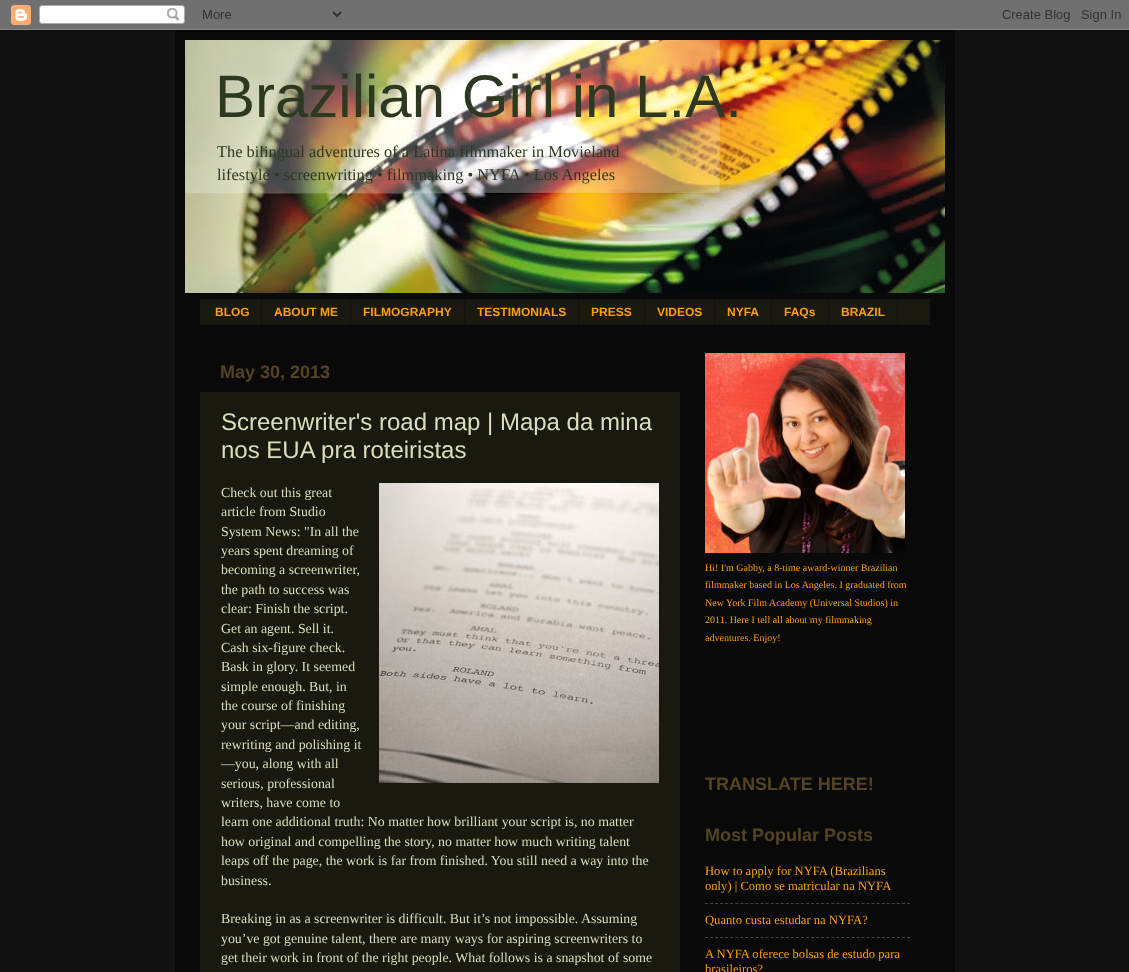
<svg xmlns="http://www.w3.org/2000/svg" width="1129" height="972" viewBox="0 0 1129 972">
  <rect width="100%" height="100%" fill="#111"/>
  <image x="0" y="0" width="1129" height="30" href="img/1.png"/>
  <path d="M175 30h780v942H175z" fill="#090909"/>
  <image x="185" y="40" width="760" height="253" href="img/2.png"/>
  <path d="M200 299h730v26H200z" fill="#19190f"/>
  <path d="M261 299h1v26H261z" fill="#111"/>
  <path d="M350 299h1v26H350z" fill="#111"/>
  <path d="M464 299h1v26H464z" fill="#111"/>
  <path d="M578 299h1v26H578z" fill="#111"/>
  <path d="M644 299h1v26H644z" fill="#111"/>
  <path d="M714 299h1v26H714z" fill="#111"/>
  <path d="M771 299h1v26H771z" fill="#111"/>
  <path d="M828 299h1v26H828z" fill="#111"/>
  <path d="M897 299h1v26H897z" fill="#111"/>
  <path d="M200 392h480v580H200z" fill="#19190f"/>
  <image x="379" y="483" width="280" height="300" href="img/3.png"/>
  <image x="705" y="353" width="200" height="200" href="img/4.png"/>
  <path d="M705 903.5H910" fill="none" stroke="#454545" stroke-dasharray="3 2.05"/>
  <path d="M705 937.5H910" fill="none" stroke="#454545" stroke-dasharray="3 2.05"/>
  <text x="215" y="117" font-family="Liberation Sans" font-size="60" fill="#2c3820">Brazilian Girl in L.A.</text>
  <g font-family="Liberation Serif" font-size="16.4" fill="#2c3820">
    <text x="217" y="157">The bilingual adventures of a Latina filmmaker in Movieland</text>
    <text x="217" y="180">lifestyle • screenwriting • filmmaking • NYFA • Los Angeles</text>
  </g>
  <g font-family="Liberation Sans" font-size="12" font-weight="bold" fill="#ff9f00">
    <text x="215" y="316">BLOG</text>
    <text x="274" y="316">ABOUT ME</text>
    <text x="363" y="316">FILMOGRAPHY</text>
    <text x="477" y="316">TESTIMONIALS</text>
    <text x="591" y="316">PRESS</text>
    <text x="657" y="316">VIDEOS</text>
    <text x="727" y="316">NYFA</text>
    <text x="784" y="316">FAQs</text>
    <text x="841" y="316">BRAZIL</text>
  </g>
  <text x="220" y="378" font-family="Liberation Sans" font-size="18" font-weight="bold" fill="#542">May 30, 2013</text>
  <g font-family="Liberation Sans" font-size="24" fill="#ddb">
    <text x="221" y="430">Screenwriter's road map | Mapa da mina</text>
    <text x="221" y="458">nos EUA pra roteiristas</text>
  </g>
  <g font-family="Liberation Serif" font-size="13.85" fill="#ddb">
    <text x="221" y="497">Check out this great</text>
    <text x="221" y="516">article from Studio</text>
    <text x="221" y="536">System News: "In all the</text>
    <text x="221" y="555">years spent dreaming of</text>
    <text x="221" y="574">becoming a screenwriter,</text>
    <text x="221" y="594">the path to success was</text>
    <text x="221" y="613">clear: Finish the script.</text>
    <text x="221" y="633">Get an agent. Sell it.</text>
    <text x="221" y="652">Cash six-figure check.</text>
    <text x="221" y="671">Bask in glory. It seemed</text>
    <text x="221" y="691">simple enough. But, in</text>
    <text x="221" y="710">the course of finishing</text>
    <text x="221" y="729">your script—and editing,</text>
    <text x="221" y="749">rewriting and polishing it</text>
    <text x="221" y="768">—you, along with all</text>
    <text x="221" y="788">serious, professional</text>
    <text x="221" y="807">writers, have come to</text>
    <text x="221" y="826">learn one additional truth: No matter how brilliant your script is, no matter</text>
    <text x="221" y="846">how original and compelling the story, no matter how much writing talent</text>
    <text x="221" y="865">leaps off the page, the work is far from finished. You still need a way into the</text>
    <text x="221" y="885">business.</text>
    <text x="221" y="923">Breaking in as a screenwriter is difficult. But it’s not impossible. Assuming</text>
    <text x="221" y="943">you’ve got genuine talent, there are many ways for aspiring screenwriters to</text>
    <text x="221" y="962">get their work in front of the right people. What follows is a snapshot of some</text>
  </g>
  <g font-family="Liberation Serif" font-size="10" fill="#ff9f00">
    <text x="705" y="571">Hi! I'm Gabby, a 8-time award-winner Brazilian</text>
    <text x="705" y="588">filmmaker based in Los Angeles. I graduated from</text>
    <text x="705" y="606">New York Film Academy (Universal Studios) in</text>
    <text x="705" y="623">2011. Here I tell all about my filmmaking</text>
    <text x="705" y="641">adventures. Enjoy!</text>
  </g>
  <g font-family="Liberation Sans" font-size="18" font-weight="bold" fill="#542">
    <text x="705" y="790">TRANSLATE HERE!</text>
    <text x="705" y="841">Most Popular Posts</text>
  </g>
  <g font-family="Liberation Serif" font-size="12.6" fill="#ff9f00">
    <text x="705" y="875">How to apply for NYFA (Brazilians</text>
    <text x="705" y="890">only) | Como se matricular na NYFA</text>
    <text x="705" y="924">Quanto custa estudar na NYFA?</text>
    <text x="705" y="958">A NYFA oferece bolsas de estudo para</text>
    <text x="705" y="973">brasileiros?</text>
  </g>
</svg>
